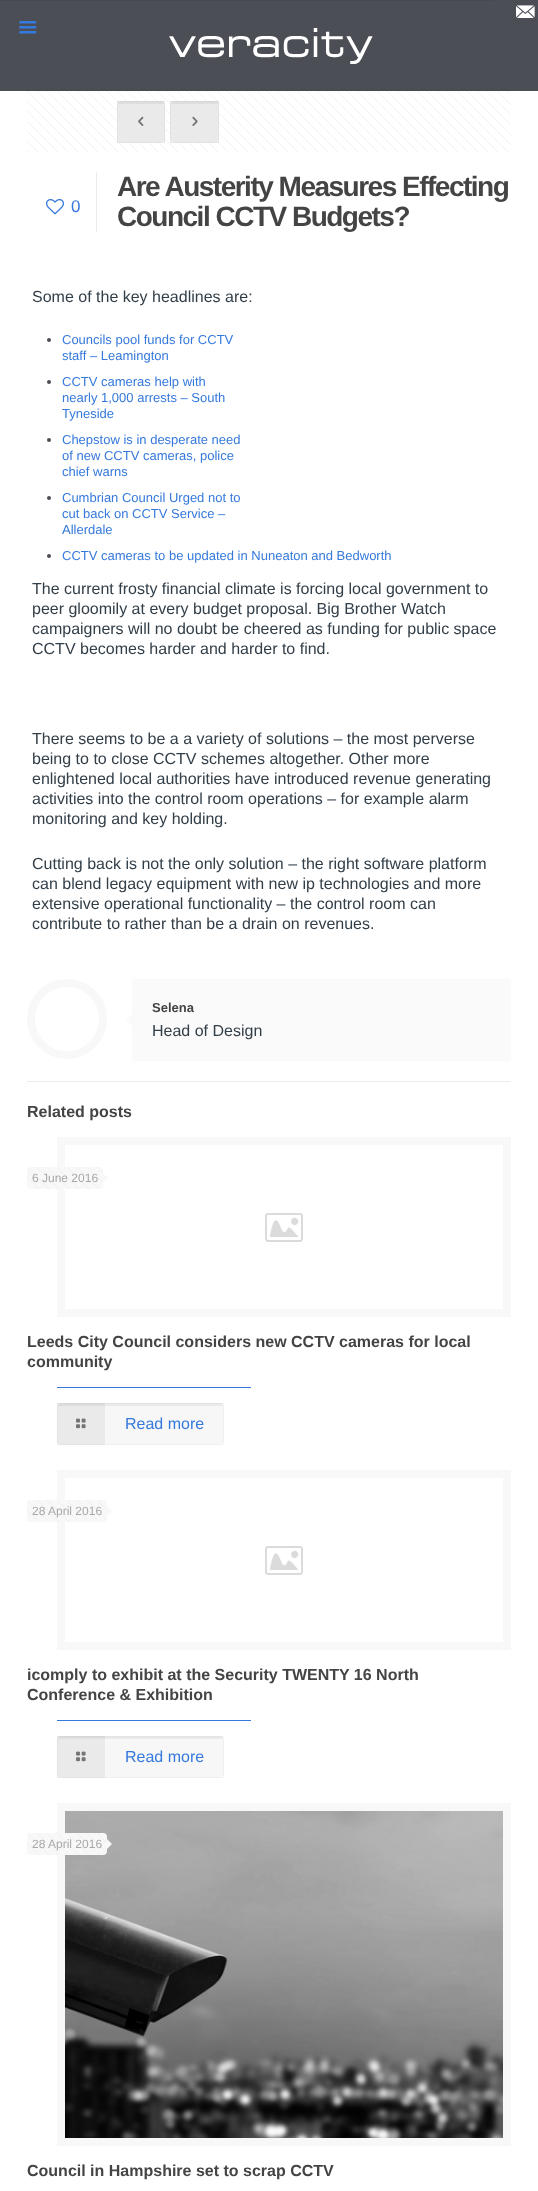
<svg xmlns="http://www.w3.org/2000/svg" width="538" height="2191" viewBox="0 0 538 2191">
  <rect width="100%" height="100%" fill="#fff"/>
  <path d="M0 0h494v1H0z" fill="#474951"/>
  <path d="M0 1h538v90H0z" fill="#4c4e56"/>
  <path d="M538 0V45L493 0Z" fill="#4c4e56"/>
  <image x="516" y="5" width="19" height="13" href="img/1.png"/>
  <image x="19" y="21" width="18" height="13" href="img/2.png"/>
  <path d="M27 90h484v1H27z" fill="#46484f"/>
  <image x="169" y="28" width="204" height="36" href="img/3.png"/>
  <image x="27" y="91" width="484" height="61" href="img/4.png"/>
  <rect x="117" y="101" width="48" height="42" rx="5" fill="#f7f7f7"/>
  <path d="M118 101h46v3H118z" fill="#0000000d"/>
  <path d="M117.5 101.5h47v41H117.5z" fill="none" stroke="#00000008"/>
  <path d="M117 101h48v42H117z" fill="#0000000d"/>
  <image x="138" y="116" width="6" height="10" href="img/5.png"/>
  <rect x="170" y="101" width="49" height="42" rx="5" fill="#f7f7f7"/>
  <path d="M171 101h47v3H171z" fill="#0000000d"/>
  <path d="M170.5 101.5h48v41H170.5z" fill="none" stroke="#00000008"/>
  <path d="M170 101h49v42H170z" fill="#0000000d"/>
  <image x="192" y="116" width="6" height="10" href="img/6.png"/>
  <image x="46" y="199" width="18" height="16" href="img/7.png"/>
  <path d="M96 172h1v60H96z" fill="#ebebeb"/>
  <circle cx="49" cy="340" r="2" fill="#4c4e56"/>
  <circle cx="49" cy="382" r="2" fill="#4c4e56"/>
  <circle cx="49" cy="440" r="2" fill="#4c4e56"/>
  <circle cx="49" cy="498" r="2" fill="#4c4e56"/>
  <circle cx="49" cy="556" r="2" fill="#4c4e56"/>
  <circle cx="67" cy="1019" r="36" fill="none" stroke="#f8f8f8" stroke-width="8"/>
  <path d="M132 979h379v82H132z" fill="#fafafa"/>
  <path d="M132 1014V1026L126 1020Z" fill="#fafafa"/>
  <path d="M27 1081h484v1H27z" fill="#ebebeb"/>
  <image x="265" y="1213" width="38" height="29" href="img/8.png"/>
  <path d="M61 1141h446v172H61z" fill="none" stroke="#f8f8f8" stroke-width="8"/>
  <rect x="27" y="1167" width="76" height="22" rx="4" fill="#f8f8f8"/>
  <image x="27" y="1167" width="76" height="22" href="img/9.png"/>
  <path d="M103 1183V1173L108 1178Z" fill="#f8f8f8"/>
  <path d="M57 1387h194v1H57z" fill="#3579dc"/>
  <rect x="57" y="1403" width="167" height="42" rx="5" fill="#f7f7f7"/>
  <path d="M58 1403h165v3H58z" fill="#0000000d"/>
  <path d="M57.5 1403.5h166v41H57.5z" fill="none" stroke="#00000008"/>
  <path d="M57 1403h48v42H57z" fill="#0000000d"/>
  <image x="76" y="1418" width="10" height="11" href="img/10.png"/>
  <image x="265" y="1546" width="38" height="29" href="img/8.png"/>
  <path d="M61 1474h446v172H61z" fill="none" stroke="#f8f8f8" stroke-width="8"/>
  <rect x="27" y="1500" width="80" height="22" rx="4" fill="#f8f8f8"/>
  <image x="27" y="1500" width="80" height="22" href="img/11.png"/>
  <path d="M107 1516V1506L112 1511Z" fill="#f8f8f8"/>
  <path d="M57 1720h194v1H57z" fill="#3579dc"/>
  <rect x="57" y="1736" width="167" height="42" rx="5" fill="#f7f7f7"/>
  <path d="M58 1736h165v3H58z" fill="#0000000d"/>
  <path d="M57.5 1736.5h166v41H57.5z" fill="none" stroke="#00000008"/>
  <path d="M57 1736h48v42H57z" fill="#0000000d"/>
  <image x="76" y="1751" width="10" height="11" href="img/10.png"/>
  <path d="M61 1807h446v335H61z" fill="none" stroke="#f8f8f8" stroke-width="8"/>
  <image x="65" y="1811" width="438" height="327" href="img/12.png"/>
  <rect x="27" y="1833" width="80" height="22" rx="4" fill="#f8f8f8"/>
  <image x="27" y="1833" width="80" height="22" href="img/13.png"/>
  <path d="M107 1849V1839L112 1844Z" fill="#f8f8f8"/>
  <text x="71" y="212" font-family="Liberation Sans" font-size="17" fill="#3579dc">0</text>
  <g font-family="Liberation Sans" font-size="28" font-weight="bold" letter-spacing="-1.5" fill="#444">
    <text x="117" y="196">Are Austerity Measures Effecting</text>
    <text x="117" y="226">Council CCTV Budgets?</text>
  </g>
  <text x="32" y="302" font-family="Liberation Sans" font-size="16" fill="#323e48">Some of the key headlines are:</text>
  <g font-family="Liberation Sans" font-size="13" fill="#3579dc">
    <text x="62" y="344">Councils pool funds for CCTV</text>
    <text x="62" y="360">staff – Leamington</text>
    <text x="62" y="386">CCTV cameras help with</text>
    <text x="62" y="402">nearly 1,000 arrests – South</text>
    <text x="62" y="418">Tyneside</text>
    <text x="62" y="444">Chepstow is in desperate need</text>
    <text x="62" y="460">of new CCTV cameras, police</text>
    <text x="62" y="476">chief warns</text>
    <text x="62" y="502">Cumbrian Council Urged not to</text>
    <text x="62" y="518">cut back on CCTV Service –</text>
    <text x="62" y="534">Allerdale</text>
    <text x="62" y="560">CCTV cameras to be updated in Nuneaton and Bedworth</text>
  </g>
  <g font-family="Liberation Sans" font-size="16" fill="#323e48">
    <text x="32" y="594">The current frosty financial climate is forcing local government to</text>
    <text x="32" y="614">peer gloomily at every budget proposal. Big Brother Watch</text>
    <text x="32" y="634">campaigners will no doubt be cheered as funding for public space</text>
    <text x="32" y="654">CCTV becomes harder and harder to find.</text>
    <text x="32" y="744">There seems to be a a variety of solutions – the most perverse</text>
    <text x="32" y="764">being to to close CCTV schemes altogether. Other more</text>
    <text x="32" y="784">enlightened local authorities have introduced revenue generating</text>
    <text x="32" y="804">activities into the control room operations – for example alarm</text>
    <text x="32" y="824">monitoring and key holding.</text>
    <text x="32" y="869">Cutting back is not the only solution – the right software platform</text>
    <text x="32" y="889">can blend legacy equipment with new ip technologies and more</text>
    <text x="32" y="909">extensive operational functionality – the control room can</text>
    <text x="32" y="929">contribute to rather than be a drain on revenues.</text>
  </g>
  <text x="152" y="1012" font-family="Liberation Sans" font-size="13" font-weight="bold" fill="#444">Selena</text>
  <text x="152" y="1036" font-family="Liberation Sans" font-size="16" fill="#323e48">Head of Design</text>
  <text x="27" y="1117" font-family="Liberation Sans" font-size="16" font-weight="bold" fill="#444">Related posts</text>
  <text x="32" y="1182" font-family="Liberation Sans" font-size="12" fill="#a8a8a8">6 June 2016</text>
  <g font-family="Liberation Sans" font-size="16" font-weight="bold" fill="#444">
    <text x="27" y="1347">Leeds City Council considers new CCTV cameras for local</text>
    <text x="27" y="1367">community</text>
  </g>
  <text x="125" y="1429" font-family="Liberation Sans" font-size="16" fill="#3579dc">Read more</text>
  <text x="32" y="1515" font-family="Liberation Sans" font-size="12" fill="#a8a8a8">28 April 2016</text>
  <g font-family="Liberation Sans" font-size="16" font-weight="bold" fill="#444">
    <text x="27" y="1680">icomply to exhibit at the Security TWENTY 16 North</text>
    <text x="27" y="1700">Conference &amp; Exhibition</text>
  </g>
  <text x="125" y="1762" font-family="Liberation Sans" font-size="16" fill="#3579dc">Read more</text>
  <text x="32" y="1848" font-family="Liberation Sans" font-size="12" fill="#a8a8a8">28 April 2016</text>
  <text x="27" y="2176" font-family="Liberation Sans" font-size="16" font-weight="bold" fill="#444">Council in Hampshire set to scrap CCTV</text>
</svg>
